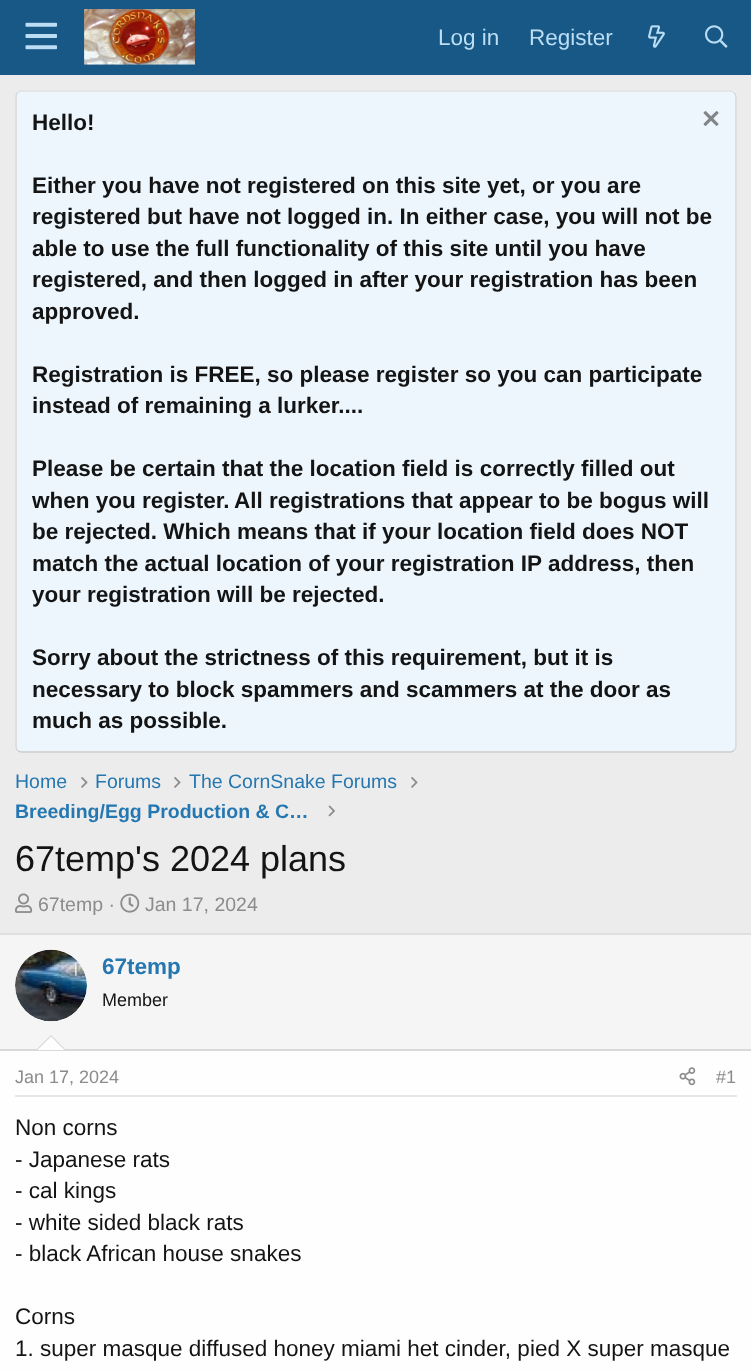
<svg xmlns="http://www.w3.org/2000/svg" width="751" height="1371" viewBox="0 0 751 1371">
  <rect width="100%" height="100%" fill="#ececec"/>
  <path d="M0 0h751v75H0z" fill="#185886"/>
  <image x="25" y="22" width="32" height="28" href="img/1.png"/>
  <image x="84" y="9" width="111" height="56" href="img/2.png"/>
  <image x="648" y="25" width="17" height="23" href="img/3.png"/>
  <image x="705" y="25" width="23" height="23" href="img/4.png"/>
  <rect x="15" y="90" width="722" height="663" rx="6" fill="#edf6fd"/>
  <path d="M17.5 92.5C18.5 91.5 19.5 91 21 91H730.5C732 91 733 91.5 734 92.5" fill="none" stroke="#dfdfdf" stroke-width="1.5"/>
  <path d="M734 92.5C735 93.5 736 94.5 736 96V747C736 748.5 735 749.5 734 750.5" fill="none" stroke="#d8d8d8" stroke-width="1.5"/>
  <path d="M734 750.5C733 751.5 732 752 730.5 752H21C19.5 752 18.5 751.5 17.5 750.5" fill="none" stroke="#cbcbcb" stroke-width="1.5"/>
  <path d="M17.5 750.5C16.5 749.5 16 748.5 16 747V96C16 94.5 16.5 93.5 17.5 92.5" fill="none" stroke="#d8d8d8" stroke-width="1.5"/>
  <image x="703" y="111" width="16" height="15" href="img/5.png"/>
  <image x="81" y="777" width="7" height="11" href="img/6.png"/>
  <image x="174" y="777" width="7" height="11" href="img/6.png"/>
  <image x="411" y="777" width="7" height="11" href="img/6.png"/>
  <image x="328" y="805" width="7" height="12" href="img/7.png"/>
  <image x="15" y="893" width="18" height="20" href="img/8.png"/>
  <image x="120" y="893" width="20" height="20" href="img/9.png"/>
  <path d="M0 1051h751v320H0z" fill="#fefefe"/>
  <path d="M0 933h751v2H0z" fill="#dfdfdf"/>
  <path d="M0 935h751v114H0z" fill="#f5f5f5"/>
  <path d="M0 1049h751v2H0z" fill="#d8d8d8"/>
  <circle cx="51" cy="986" r="36" fill="#fefefe"/>
  <image x="15" y="949" width="72" height="73" href="img/10.png"/>
  <path d="M66 1050H36L51 1035Z" fill="#d8d8d8"/>
  <path d="M64.5 1050H37.5L51 1036.5Z" fill="#fefefe"/>
  <path d="M15 1095h722v2H15z" fill="#e7e7e7"/>
  <image x="679" y="1067" width="17" height="19" href="img/11.png"/>
  <g font-family="Liberation Sans" font-size="22.5" fill="#bcdef5">
    <text x="438" y="45">Log in</text>
    <text x="529" y="45">Register</text>
  </g>
  <g font-family="Liberation Sans" font-size="22.5" font-weight="bold" fill="#141414">
    <text x="32" y="130">Hello!</text>
    <text x="32" y="193">Either you have not registered on this site yet, or you are</text>
    <text x="32" y="224">registered but have not logged in. In either case, you will not be</text>
    <text x="32" y="256">able to use the full functionality of this site until you have</text>
    <text x="32" y="287">registered, and then logged in after your registration has been</text>
    <text x="32" y="319">approved.</text>
    <text x="32" y="382">Registration is FREE, so please register so you can participate</text>
    <text x="32" y="413">instead of remaining a lurker....</text>
    <text x="32" y="476">Please be certain that the location field is correctly filled out</text>
    <text x="32" y="508">when you register.</text>
    <text x="234" y="508">All registrations that appear to be bogus will</text>
    <text x="32" y="539">be rejected. Which means that if your location field does NOT</text>
    <text x="32" y="571">match the actual location of your registration IP address, then</text>
    <text x="32" y="602">your registration will be rejected.</text>
    <text x="32" y="665">Sorry about the strictness of this requirement, but it is</text>
    <text x="32" y="697">necessary to block spammers and scammers at the door as</text>
    <text x="32" y="728">much as possible.</text>
  </g>
  <g font-family="Liberation Sans" font-size="19.5" fill="#2577b1">
    <text x="15" y="788">Home</text>
    <text x="95" y="788">Forums</text>
    <text x="189" y="788">The CornSnake Forums</text>
  </g>
  <text x="15" y="818" font-family="Liberation Sans" font-size="19.5" font-weight="bold" fill="#2577b1">Breeding/Egg Production &amp; C…</text>
  <text x="15" y="871" font-family="Liberation Sans" font-size="36" fill="#141414">67temp's 2024 plans</text>
  <g font-family="Liberation Sans" font-size="19.5" fill="#8c8c8c">
    <text x="38" y="911">67temp ·</text>
    <text x="145" y="911">Jan 17, 2024</text>
  </g>
  <text x="102" y="974" font-family="Liberation Sans" font-size="22.5" font-weight="bold" fill="#2577b1">67temp</text>
  <text x="102" y="1006" font-family="Liberation Sans" font-size="18" fill="#141414">Member</text>
  <g font-family="Liberation Sans" font-size="18" fill="#8c8c8c">
    <text x="15" y="1083">Jan 17, 2024</text>
    <text x="716" y="1083">#1</text>
  </g>
  <g font-family="Liberation Sans" font-size="22.5" fill="#141414">
    <text x="15" y="1135">Non corns</text>
    <text x="15" y="1167">- Japanese rats</text>
    <text x="15" y="1198">- cal kings</text>
    <text x="15" y="1230">- white sided black rats</text>
    <text x="15" y="1261">- black African house snakes</text>
    <text x="15" y="1324">Corns</text>
    <text x="15" y="1356">1. super masque diffused honey miami het cinder, pied X super masque</text>
  </g>
</svg>
